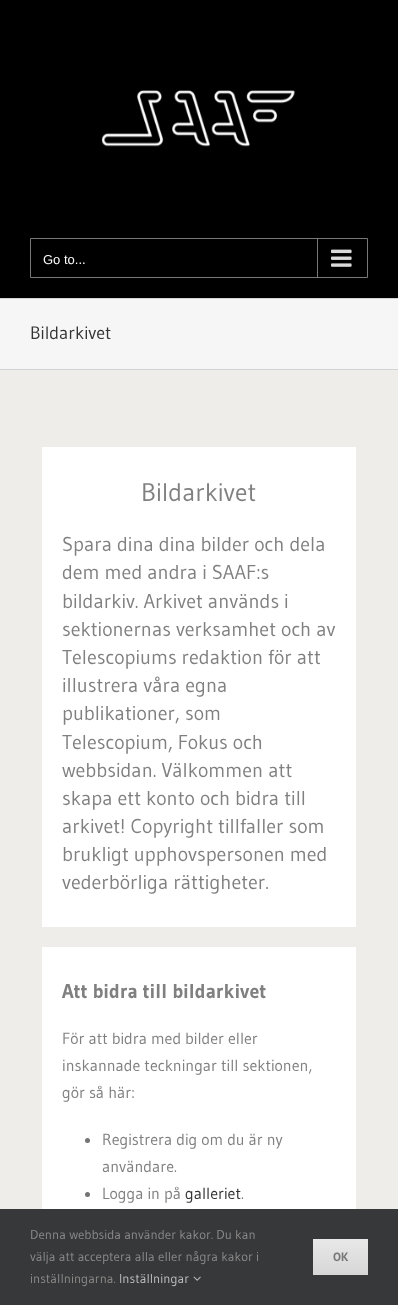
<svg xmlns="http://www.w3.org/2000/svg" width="398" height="1305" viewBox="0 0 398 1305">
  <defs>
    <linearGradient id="g1" gradientUnits="userSpaceOnUse" x1="341" y1="1239" x2="341" y2="1275"><stop offset="0" stop-color="#e8e8e8"/><stop offset="1" stop-color="#d6d6d6"/></linearGradient>
  </defs>
  <rect width="100%" height="100%" fill="#eeede9"/>
  <path d="M0 0h398v298H0z" fill="#000"/>
  <image x="101" y="90" width="194" height="57" href="img/1.png"/>
  <path d="M30.5 238.5h337v39H30.5z" fill="none" stroke="#787878"/>
  <path d="M317 239h1v38H317z" fill="#787878"/>
  <image x="331" y="249" width="21" height="18" href="img/2.png"/>
  <path d="M0 299h398v70H0z" fill="#f6f6f6"/>
  <path d="M0 298h398v1H0z" fill="#d2d3d4"/>
  <path d="M0 369h398v1H0z" fill="#d2d3d4"/>
  <path d="M42 447h314v480H42z" fill="#fff"/>
  <path d="M42 947h314v262H42z" fill="#fff"/>
  <circle cx="87.5" cy="1140.5" r="2.5" fill="#747474"/>
  <circle cx="87.5" cy="1194.5" r="2.5" fill="#747474"/>
  <path d="M0 1209h398v96H0z" fill="#363839"/>
  <image x="193" y="1276" width="8" height="5" href="img/3.png"/>
  <path d="M313 1239h55v36H313z" fill="url(#g1)"/>
  <text x="43" y="264" font-family="Liberation Sans" font-size="13" fill="#fff">Go to...</text>
  <text x="30" y="339" font-family="Gudea" font-size="18" fill="#333">Bildarkivet</text>
  <text x="141" y="501" font-family="Gudea" font-size="25.5" fill="#808080">Bildarkivet</text>
  <g font-family="Gudea" font-size="20" fill="#808080">
    <text x="62" y="551">Spara dina dina bilder och dela</text>
    <text x="62" y="579">dem med andra i SAAF:s</text>
    <text x="62" y="608">bildarkiv. Arkivet används i</text>
    <text x="62" y="636">sektionernas verksamhet och av</text>
    <text x="62" y="664">Telescopiums redaktion för att</text>
    <text x="62" y="692">illustrera våra egna</text>
    <text x="62" y="720">publikationer, som</text>
    <text x="62" y="749">Telescopium, Fokus och</text>
    <text x="62" y="777">webbsidan. Välkommen att</text>
    <text x="62" y="805">skapa ett konto och bidra till</text>
    <text x="62" y="833">arkivet! Copyright tillfaller som</text>
    <text x="62" y="861">brukligt upphovspersonen med</text>
    <text x="62" y="889">vederbörliga rättigheter.</text>
  </g>
  <text x="62" y="998" font-family="Gudea" font-size="20" font-weight="bold" fill="#808080">Att bidra till bildarkivet</text>
  <g font-family="Gudea" font-size="16" fill="#808080">
    <text x="62" y="1044">För att bidra med bilder eller</text>
    <text x="62" y="1071">inskannade teckningar till sektionen,</text>
    <text x="62" y="1098">gör så här:</text>
    <text x="102" y="1145">Registrera dig om du är ny</text>
    <text x="102" y="1172">användare.</text>
    <text x="102" y="1199">Logga in på</text>
  </g>
  <text x="185" y="1199" font-family="Gudea" font-size="16" fill="#333">galleriet</text>
  <text x="241" y="1199" font-family="Gudea" font-size="16" fill="#808080">.</text>
  <g font-family="Gudea" font-size="13" fill="#8c8989">
    <text x="30" y="1239">Denna webbsida använder kakor. Du kan</text>
    <text x="30" y="1261">välja att acceptera alla eller några kakor i</text>
    <text x="30" y="1283">inställningarna.</text>
  </g>
  <text x="119" y="1283" font-family="Gudea" font-size="13" fill="#bfbfbf">Inställningar</text>
  <text x="333" y="1261" font-family="PT Sans" font-size="12" font-weight="bold" fill="#787878">OK</text>
</svg>
